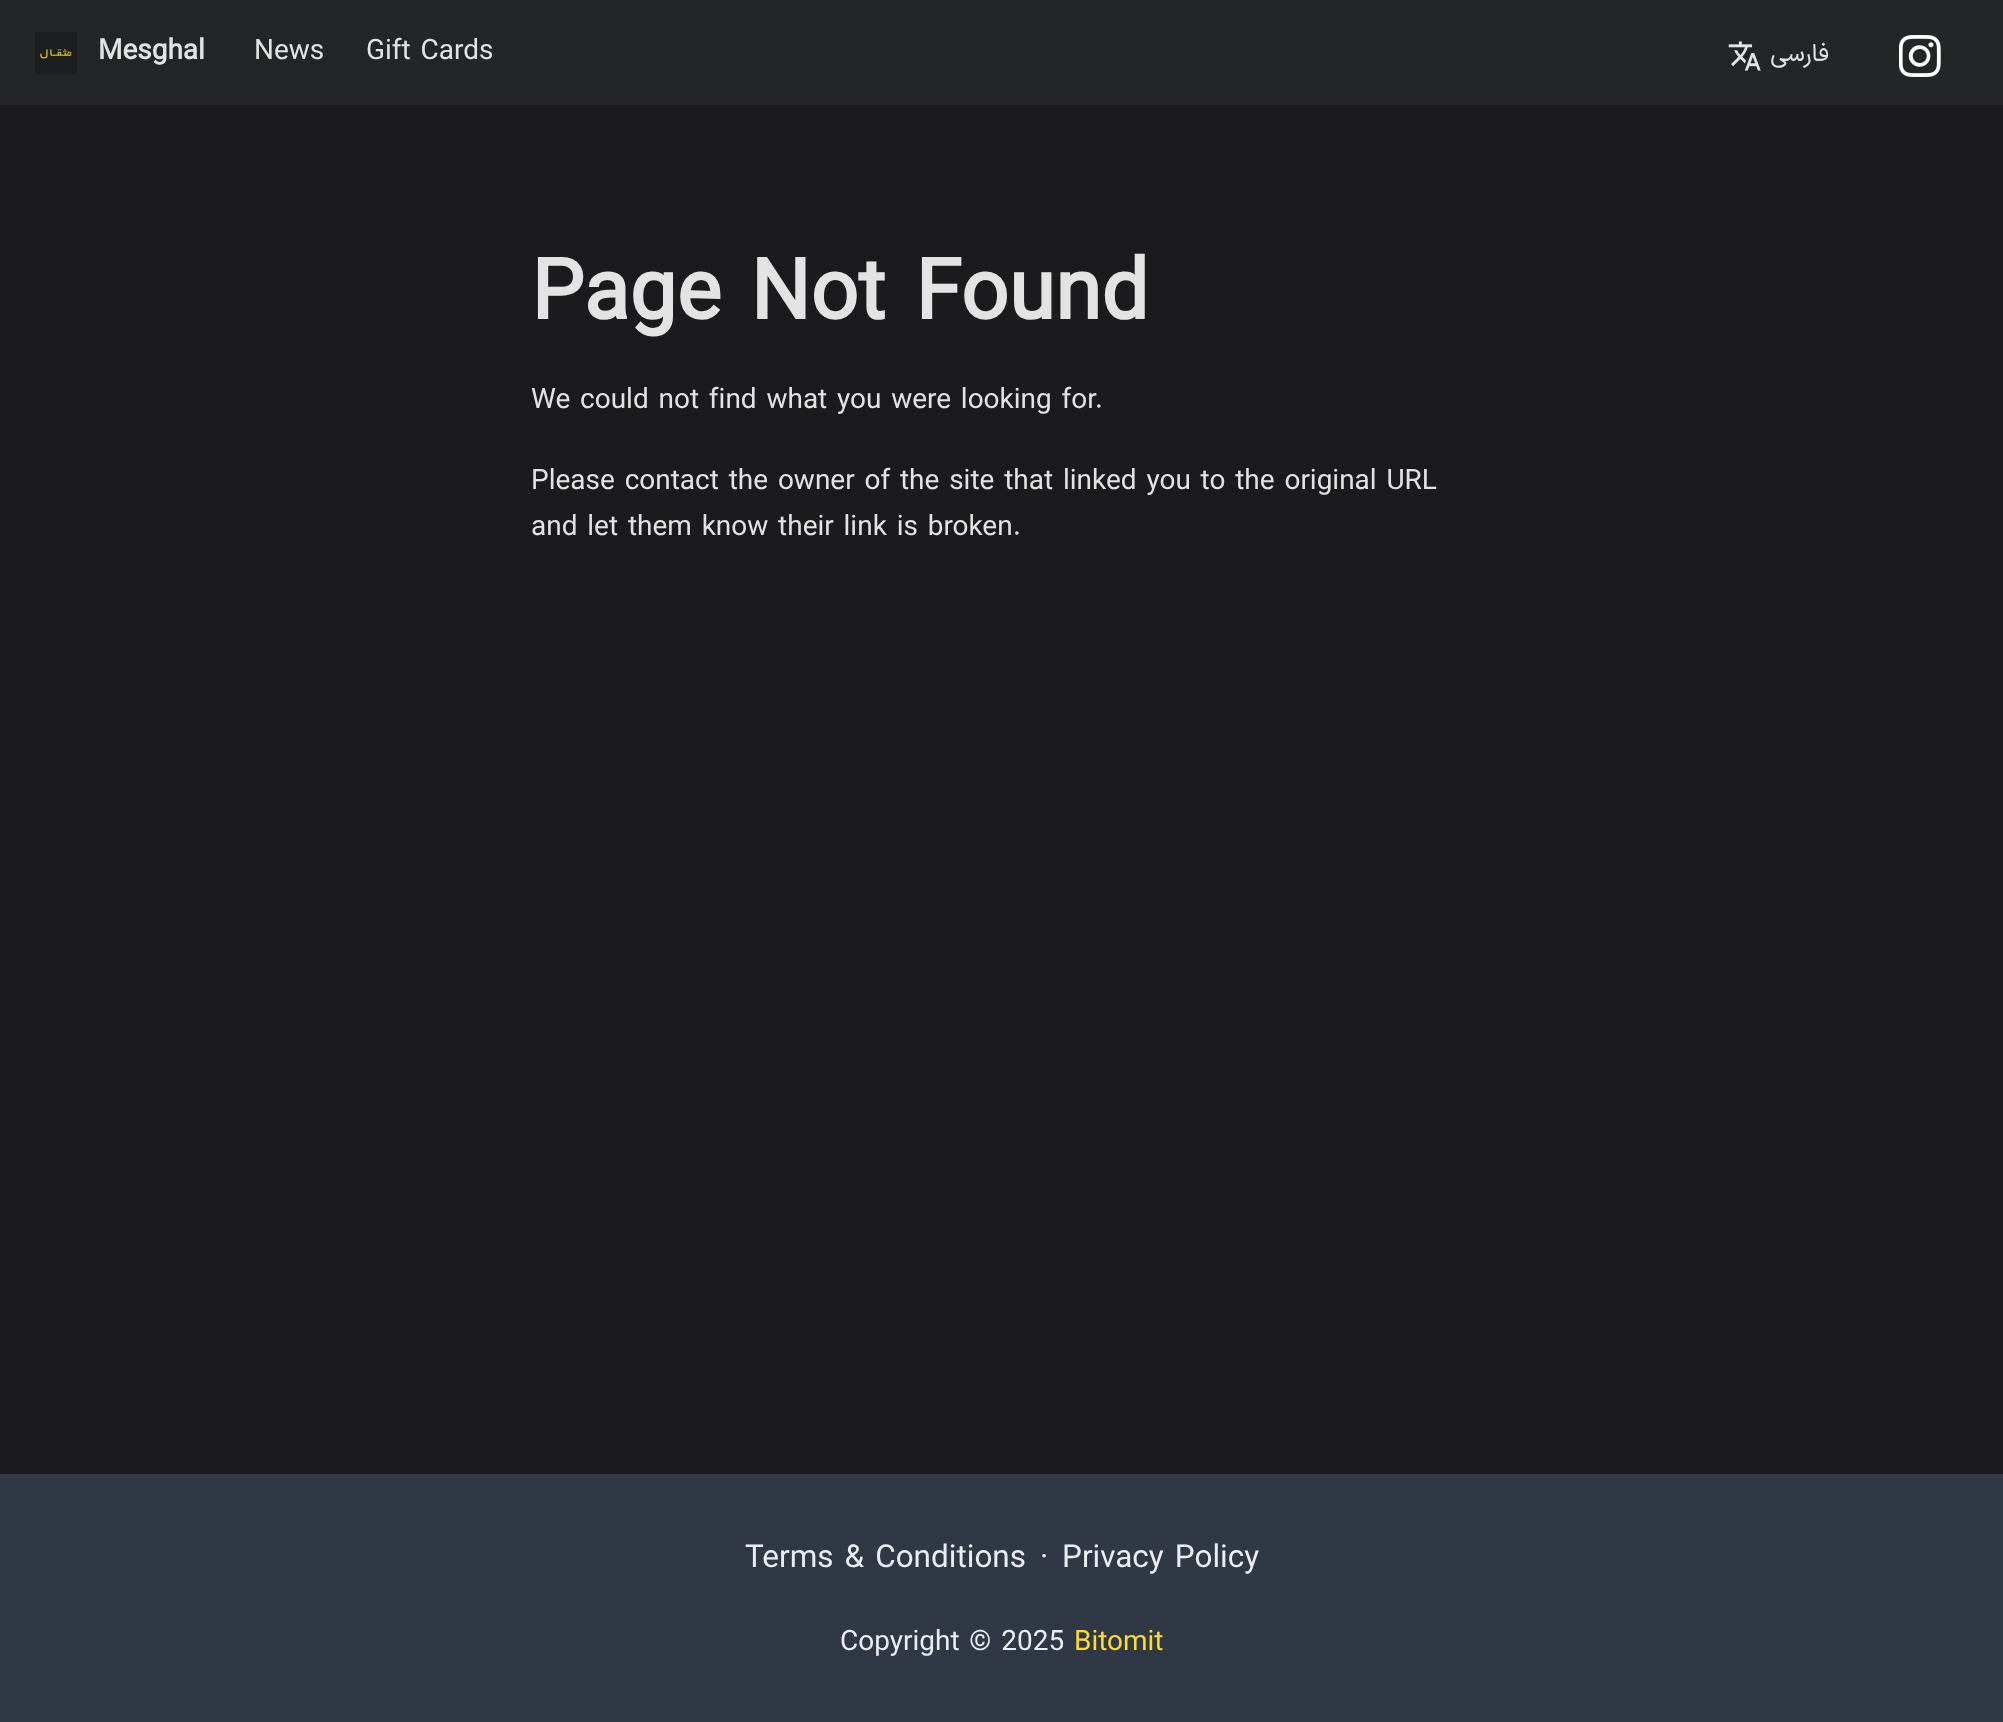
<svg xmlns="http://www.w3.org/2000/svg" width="2003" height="1722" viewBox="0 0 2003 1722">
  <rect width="100%" height="100%" fill="#1b1b1d"/>
  <path d="M0 0h2003v105H0z" fill="#242526"/>
  <image x="35" y="32" width="42" height="42" href="img/1.png"/>
  <image x="1728" y="41" width="33" height="30" href="img/2.png"/>
  <image x="1899" y="35" width="42" height="42" href="img/3.png"/>
  <path d="M0 1474h2003v248H0z" fill="#303846"/>
  <text x="98" y="59" font-family="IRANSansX" font-size="28" font-weight="bold" fill="#e3e3e3">Mesghal</text>
  <g font-family="IRANSansX" font-size="28" fill="#e3e3e3">
    <text x="254" y="59">News</text>
    <text x="366" y="59">Gift Cards</text>
  </g>
  <text x="1829" y="61" font-family="IRANSansX" font-size="24.5" direction="rtl" fill="#e3e3e3">فارسی</text>
  <text x="531" y="319" font-family="IRANSansX" font-size="84" font-weight="bold" fill="#e3e3e3">Page Not Found</text>
  <g font-family="IRANSansX" font-size="28" fill="#e3e3e3">
    <text x="531" y="408">We could not find what you were looking for.</text>
    <text x="531" y="489">Please contact the owner of the site that linked you to the original URL</text>
    <text x="531" y="535">and let them know their link is broken.</text>
  </g>
  <text x="745" y="1567" font-family="IRANSansX" font-size="31.5" fill="#ebedf0">Terms &amp; Conditions</text>
  <text x="1040" y="1567" font-family="Roboto" font-size="31.5" fill="#ebedf0">·</text>
  <text x="1062" y="1567" font-family="IRANSansX" font-size="31.5" fill="#ebedf0">Privacy Policy</text>
  <text x="840" y="1650" font-family="IRANSansX" font-size="28" fill="#ebedf0">Copyright © 2025</text>
  <text x="1074" y="1650" font-family="IRANSansX" font-size="28" fill="#fbdd30">Bitomit</text>
</svg>
